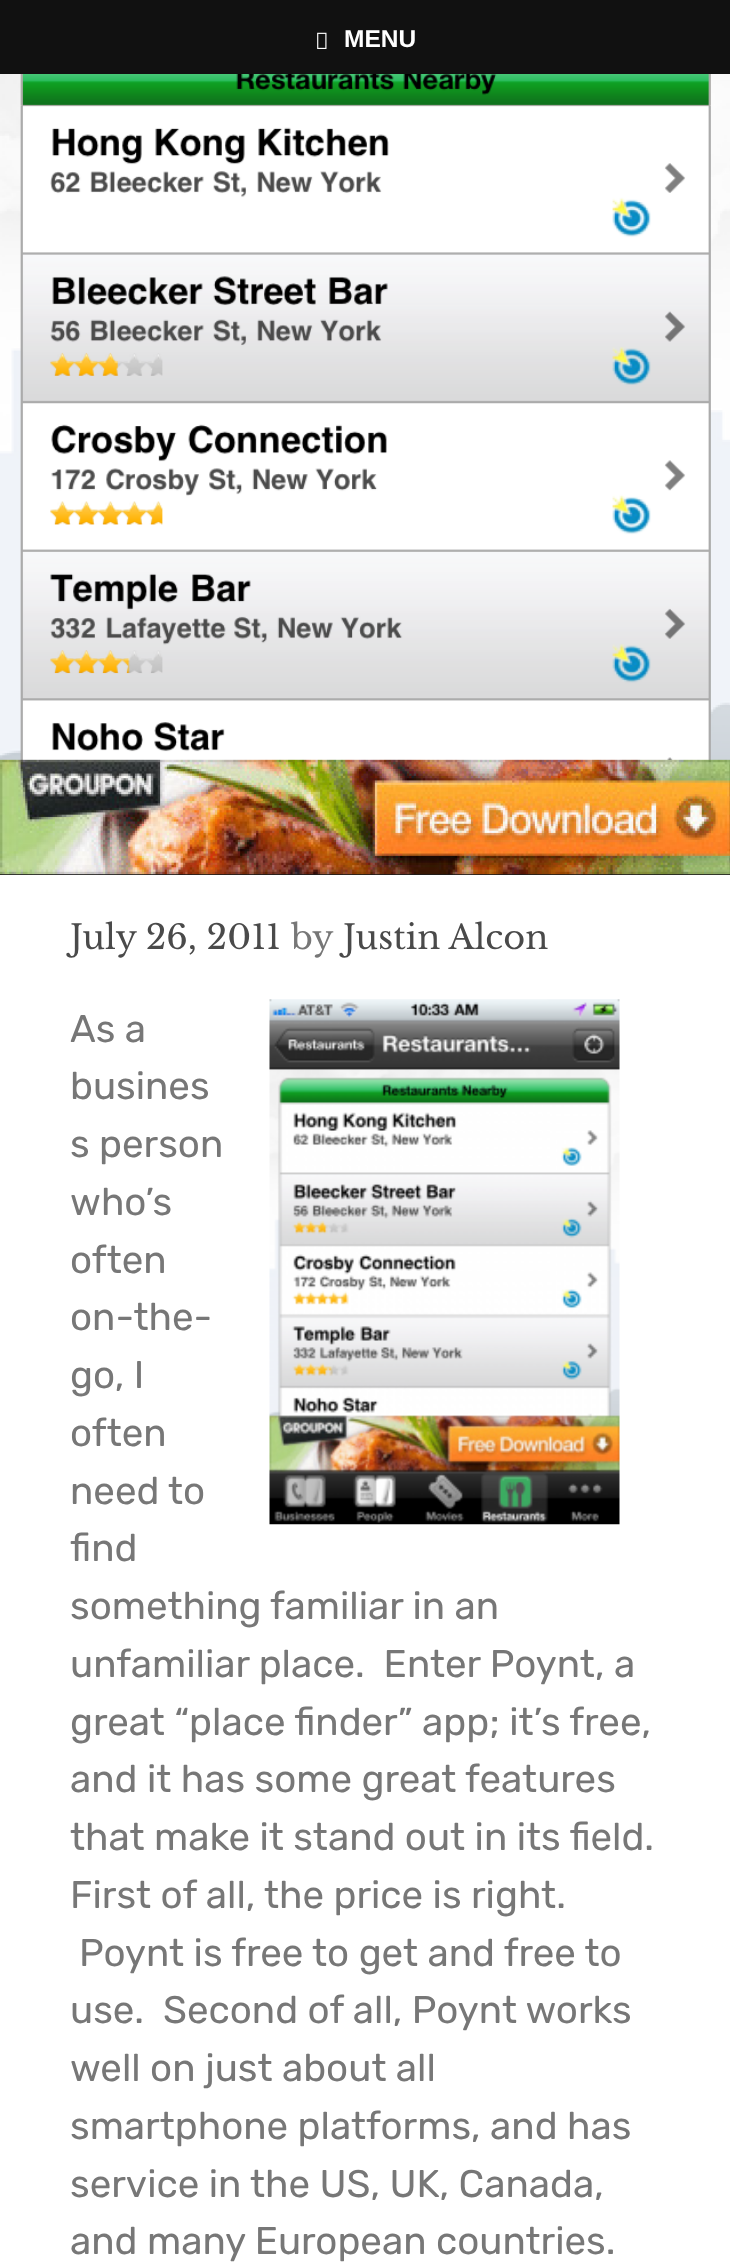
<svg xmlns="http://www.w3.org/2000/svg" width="730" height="2262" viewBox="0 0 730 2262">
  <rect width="100%" height="100%" fill="#fff"/>
  <image x="0" y="74" width="730" height="801" href="img/1.png"/>
  <path d="M0 0h730v74H0z" fill="#111"/>
  <image x="317" y="32" width="10" height="17" href="img/2.png"/>
  <image x="269" y="999" width="351" height="526" href="img/3.png"/>
  <text x="344" y="47" font-family="Liberation Sans" font-size="24.5" font-weight="bold" fill="#fff">MENU</text>
  <text x="70" y="949" font-family="Libre Baskerville" font-size="33.5" fill="#4a4a4a">July 26, 2011</text>
  <text x="291" y="949" font-family="Libre Baskerville" font-size="33.5" fill="#777">by</text>
  <text x="343" y="949" font-family="Libre Baskerville" font-size="33.5" fill="#4a4a4a">Justin Alcon</text>
  <g font-family="Rubik" font-size="38.5" fill="#777">
    <text x="70" y="1042">As a</text>
    <text x="70" y="1099">busines</text>
    <text x="70" y="1157">s person</text>
    <text x="70" y="1215">who’s</text>
    <text x="70" y="1273">often</text>
    <text x="70" y="1330">on-the-</text>
    <text x="70" y="1388">go, I</text>
    <text x="70" y="1446">often</text>
    <text x="70" y="1504">need to</text>
    <text x="70" y="1561">find</text>
    <text x="70" y="1619">something</text>
    <text x="270" y="1619">familiar in an</text>
    <text x="70" y="1677" xml:space="preserve">unfamiliar place.  Enter Poynt, a</text>
    <text x="70" y="1735">great “place finder” app; it’s free,</text>
    <text x="70" y="1792">and it has some great features</text>
    <text x="70" y="1850">that make it stand out in its field.</text>
    <text x="70" y="1908">First of all, the price is right.</text>
    <text x="79" y="1966">Poynt is free to get and free to</text>
    <text x="70" y="2023">use.</text>
    <text x="163" y="2023">Second of all, Poynt works</text>
    <text x="70" y="2081">well on just about all</text>
    <text x="70" y="2139">smartphone platforms, and has</text>
    <text x="70" y="2197">service in the US, UK, Canada,</text>
    <text x="70" y="2254">and many European countries.</text>
  </g>
</svg>
